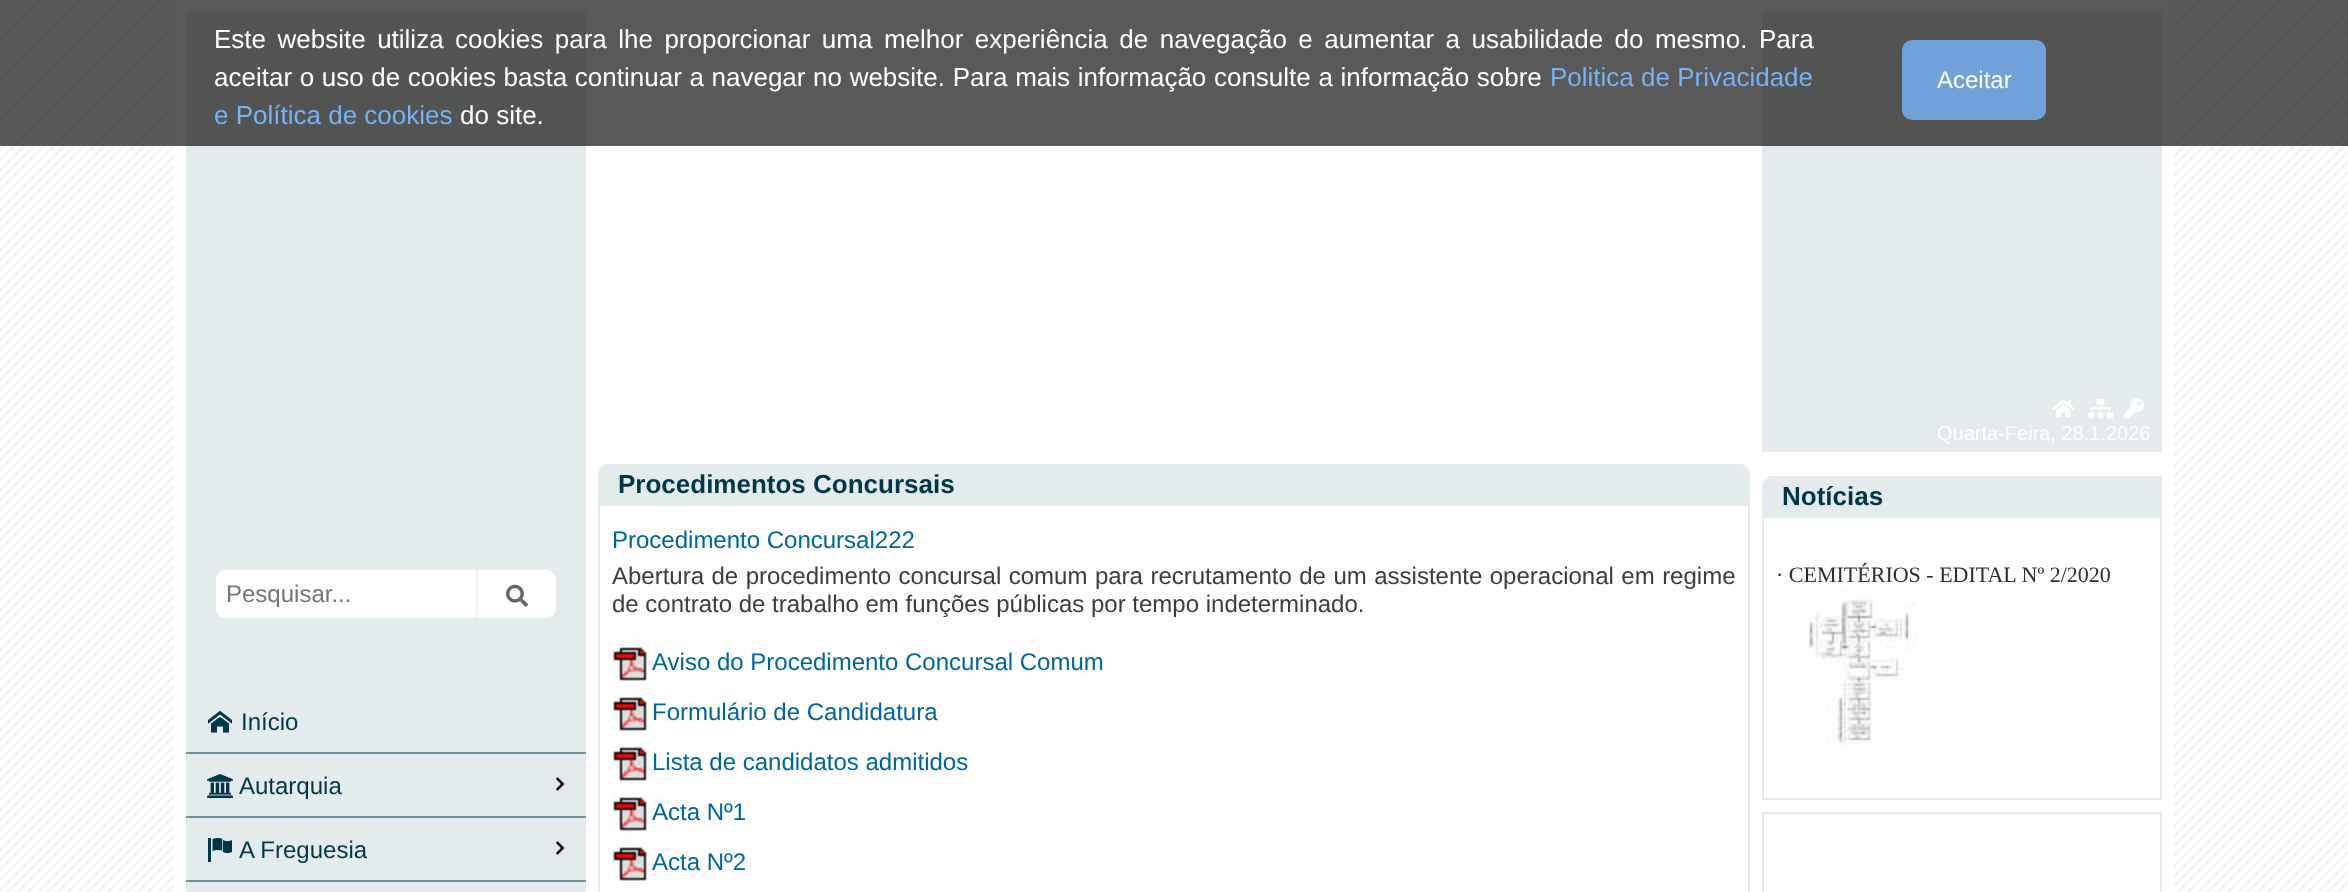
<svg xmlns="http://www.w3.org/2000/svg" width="2348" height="892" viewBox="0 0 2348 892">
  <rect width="100%" height="100%" fill="#e4ebed"/>
  <image x="0" y="0" width="2348" height="892" href="img/1.png"/>
  <path d="M174 0h2000v892H174z" fill="#fff"/>
  <path d="M186 12h400v880H186z" fill="#e4ebed"/>
  <path d="M1762 12h400v440H1762z" fill="#e4ebed"/>
  <path d="M0 0h2348v146H0z" fill="#191919b8"/>
  <rect x="1902" y="40" width="144" height="80" rx="10" fill="#6fa2d8"/>
  <image x="2052" y="399" width="23" height="19" href="img/2.png"/>
  <image x="2088" y="398" width="25" height="21" href="img/3.png"/>
  <image x="2124" y="398" width="20" height="21" href="img/4.png"/>
  <path d="M598 464h1152v40H598z" fill="#e4ebed"/>
  <image x="598" y="464" width="8" height="9" href="img/5.png"/>
  <image x="1742" y="464" width="8" height="9" href="img/6.png"/>
  <path d="M599 505h1150v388H599z" fill="none" stroke="#e4ebed" stroke-width="2"/>
  <image x="612" y="646" width="35" height="35" href="img/7.png"/>
  <image x="612" y="696" width="35" height="35" href="img/7.png"/>
  <image x="612" y="746" width="35" height="35" href="img/7.png"/>
  <image x="612" y="796" width="35" height="35" href="img/7.png"/>
  <image x="612" y="846" width="35" height="35" href="img/7.png"/>
  <path d="M1762 476h400v40H1762z" fill="#e4ebed"/>
  <image x="1762" y="476" width="8" height="9" href="img/5.png"/>
  <path d="M1763 517h398v282H1763z" fill="none" stroke="#e4ebed" stroke-width="2"/>
  <image x="1808" y="589" width="110" height="157" href="img/8.png"/>
  <path d="M1763 813h398v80H1763z" fill="none" stroke="#e4ebed" stroke-width="2"/>
  <path d="M226 570H476V618H226C220.5 618 216 613.5 216 608V580C216 574.5 220.5 570 226 570Z" fill="#fff"/>
  <path d="M476 570H546C551.5 570 556 574.5 556 580V608C556 613.5 551.5 618 546 618H476Z" fill="#fff"/>
  <path d="M476 570h2v48H476z" fill="#f2f2f2"/>
  <image x="506" y="584" width="22" height="23" href="img/9.png"/>
  <path d="M186 752h400v2H186z" fill="#6d8d97"/>
  <image x="208" y="710" width="24" height="23" href="img/10.png"/>
  <path d="M186 816h400v2H186z" fill="#6d8d97"/>
  <image x="207" y="774" width="26" height="24" href="img/11.png"/>
  <image x="556" y="777" width="9" height="14" href="img/12.png"/>
  <path d="M186 880h400v2H186z" fill="#6d8d97"/>
  <image x="208" y="838" width="24" height="24" href="img/13.png"/>
  <image x="556" y="841" width="9" height="14" href="img/12.png"/>
  <g font-family="Liberation Sans" font-size="26" fill="#fff">
    <text x="214" y="48" word-spacing="4.25">Este website utiliza cookies para lhe proporcionar uma melhor experiência de navegação e aumentar a usabilidade do mesmo. Para</text>
    <text x="214" y="86" word-spacing="0.4">aceitar o uso de cookies basta continuar a navegar no website. Para mais informação consulte a informação sobre</text>
  </g>
  <g font-family="Liberation Sans" font-size="26" fill="#75b3f5">
    <text x="1550" y="86">Politica de Privacidade</text>
    <text x="214" y="124">e Política de cookies</text>
  </g>
  <text x="460" y="124" font-family="Liberation Sans" font-size="26" fill="#fff">do site.</text>
  <text x="1937" y="88" font-family="Liberation Sans" font-size="24" fill="#fff">Aceitar</text>
  <text x="1937" y="440" font-family="Liberation Sans" font-size="20" fill="#fff">Quarta-Feira, 28.1.2026</text>
  <text x="618" y="493" font-family="Liberation Sans" font-size="26" font-weight="bold" fill="#003748">Procedimentos Concursais</text>
  <text x="612" y="548" font-family="Liberation Sans" font-size="24" fill="#069">Procedimento Concursal222</text>
  <g font-family="Liberation Sans" font-size="24" fill="#3b3c3d">
    <text x="612" y="584" word-spacing="0.8">Abertura de procedimento concursal comum para recrutamento de um assistente operacional em regime</text>
    <text x="612" y="612">de contrato de trabalho em funções públicas por tempo indeterminado.</text>
  </g>
  <g font-family="Liberation Sans" font-size="24" fill="#069">
    <text x="652" y="670">Aviso do Procedimento Concursal Comum</text>
    <text x="652" y="720">Formulário de Candidatura</text>
    <text x="652" y="770">Lista de candidatos admitidos</text>
    <text x="652" y="820">Acta Nº1</text>
    <text x="652" y="870">Acta Nº2</text>
  </g>
  <text x="1782" y="505" font-family="Liberation Sans" font-size="26" font-weight="bold" fill="#003748">Notícias</text>
  <text x="1776" y="582" font-family="Liberation Serif" font-size="22" fill="#2d2e2e">· CEMITÉRIOS - EDITAL Nº 2/2020</text>
  <text x="226" y="602" font-family="Liberation Sans" font-size="24" fill="#757575">Pesquisar...</text>
  <g font-family="Liberation Sans" font-size="24" fill="#003748">
    <text x="241" y="730">Início</text>
    <text x="239" y="794">Autarquia</text>
    <text x="239" y="858">A Freguesia</text>
  </g>
</svg>
